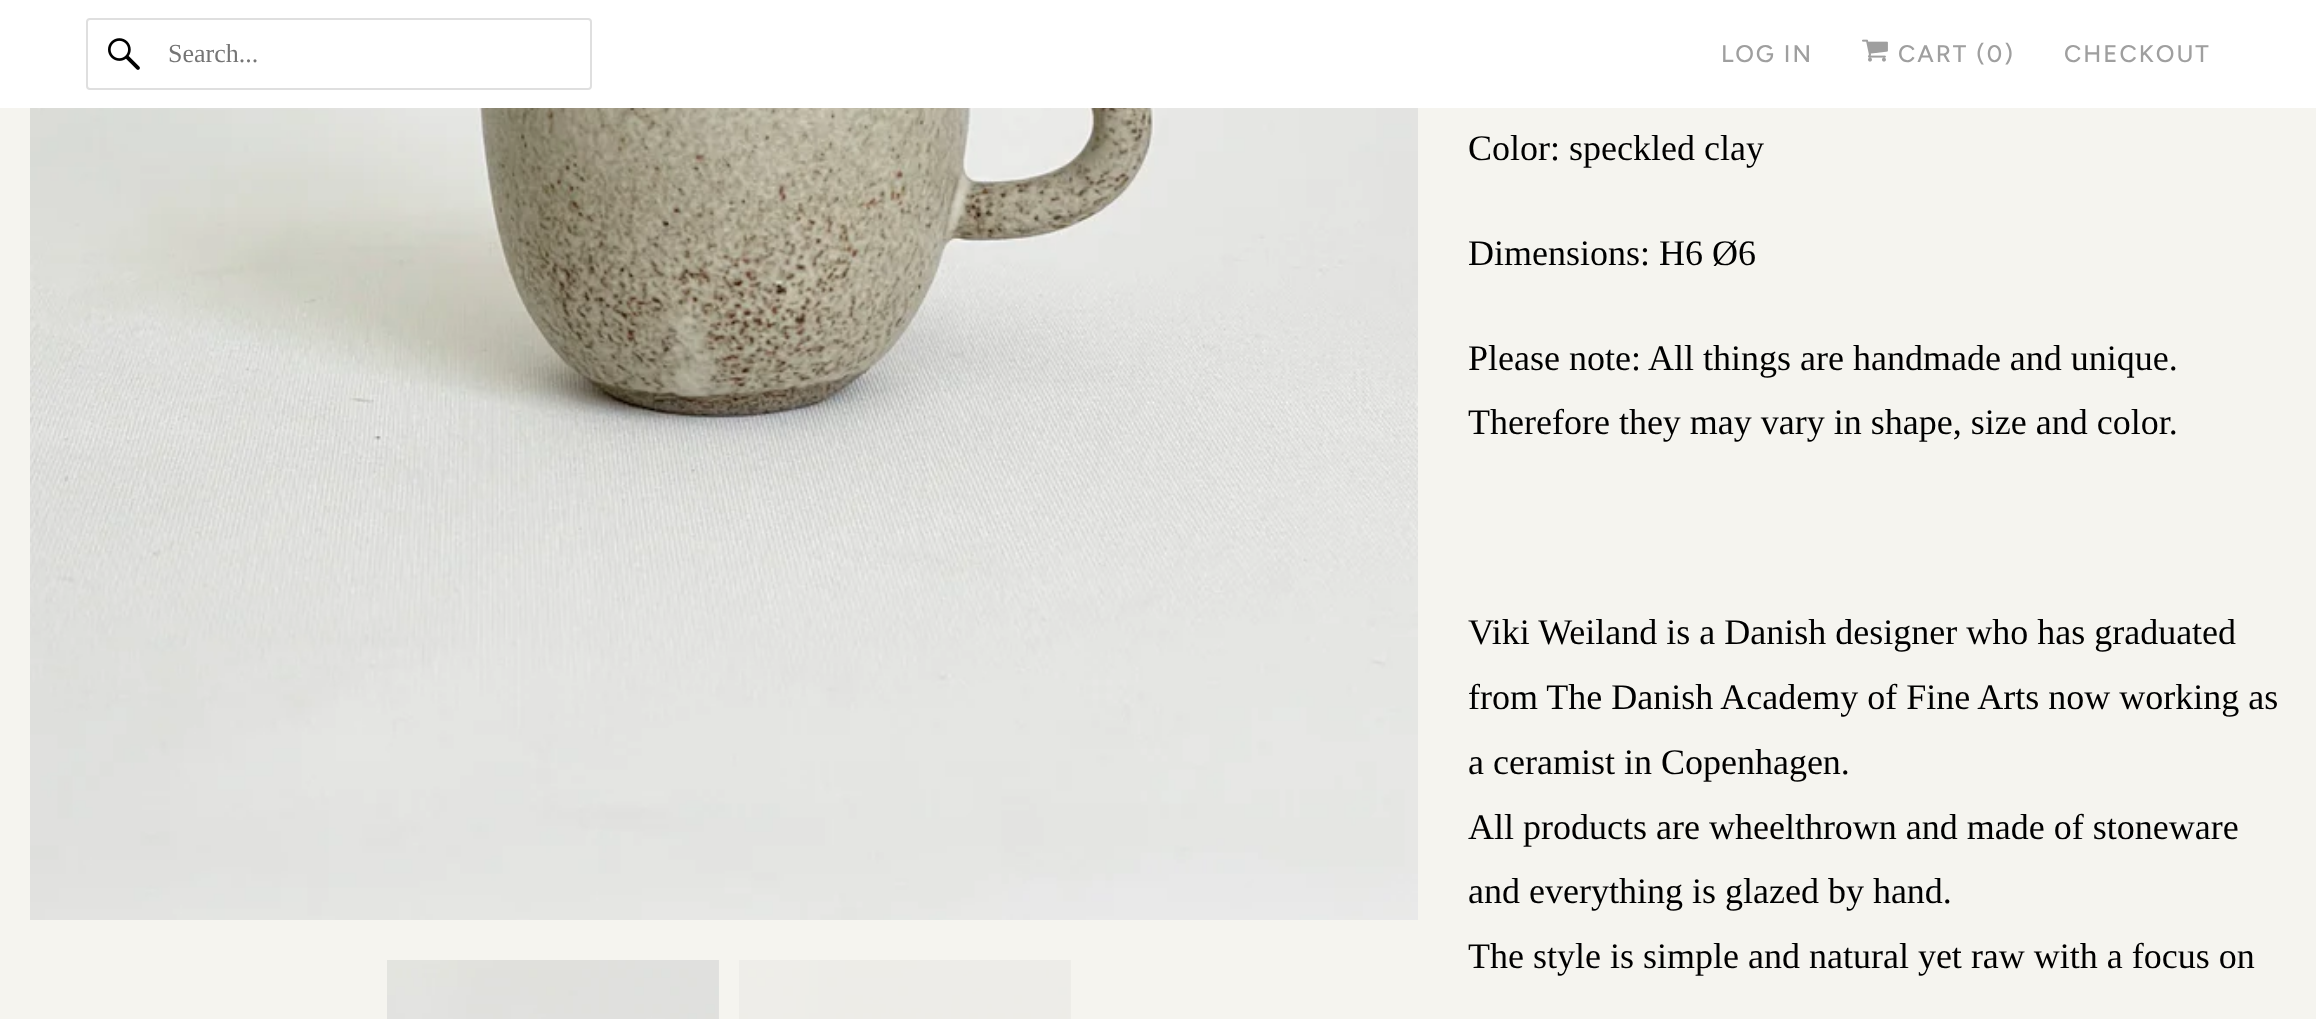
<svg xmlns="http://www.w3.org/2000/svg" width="2316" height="1019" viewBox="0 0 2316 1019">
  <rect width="100%" height="100%" fill="#f5f4ef"/>
  <path d="M0 0h2316v108H0z" fill="#fff"/>
  <rect x="87" y="19" width="504" height="70" rx="3" fill="none" stroke="#dfdfdf" stroke-width="2"/>
  <image x="108" y="38" width="32" height="32" href="img/1.png"/>
  <image x="1862" y="39" width="26" height="23" href="img/2.png"/>
  <image x="30" y="108" width="1388" height="812" href="img/3.png"/>
  <image x="387" y="960" width="332" height="59" href="img/4.png"/>
  <image x="739" y="960" width="332" height="59" href="img/5.png"/>
  <text x="168" y="62" font-family="Liberation Serif" font-size="26" fill="#757575">Search...</text>
  <g font-family="Figtree" font-size="24" font-weight="500" letter-spacing="2" fill="#9f9f9f">
    <text x="1721" y="62">LOG IN</text>
    <text x="1898" y="62">CART (0)</text>
    <text x="2064" y="62">CHECKOUT</text>
  </g>
  <g font-family="Liberation Serif" font-size="36" fill="#000">
    <text x="1468" y="160">Color: speckled clay</text>
    <text x="1468" y="265">Dimensions: H6 Ø6</text>
    <text x="1468" y="370">Please note: All things are handmade and unique.</text>
    <text x="1468" y="434">Therefore they may vary in shape, size and color.</text>
    <text x="1468" y="644">Viki Weiland is a Danish designer who has graduated</text>
    <text x="1468" y="709">from The Danish Academy of Fine Arts now working as</text>
    <text x="1468" y="774">a ceramist in Copenhagen.</text>
    <text x="1468" y="839">All products are wheelthrown and made of stoneware</text>
    <text x="1468" y="903">and everything is glazed by hand.</text>
    <text x="1468" y="968">The style is simple and natural yet raw with a focus on</text>
  </g>
</svg>
